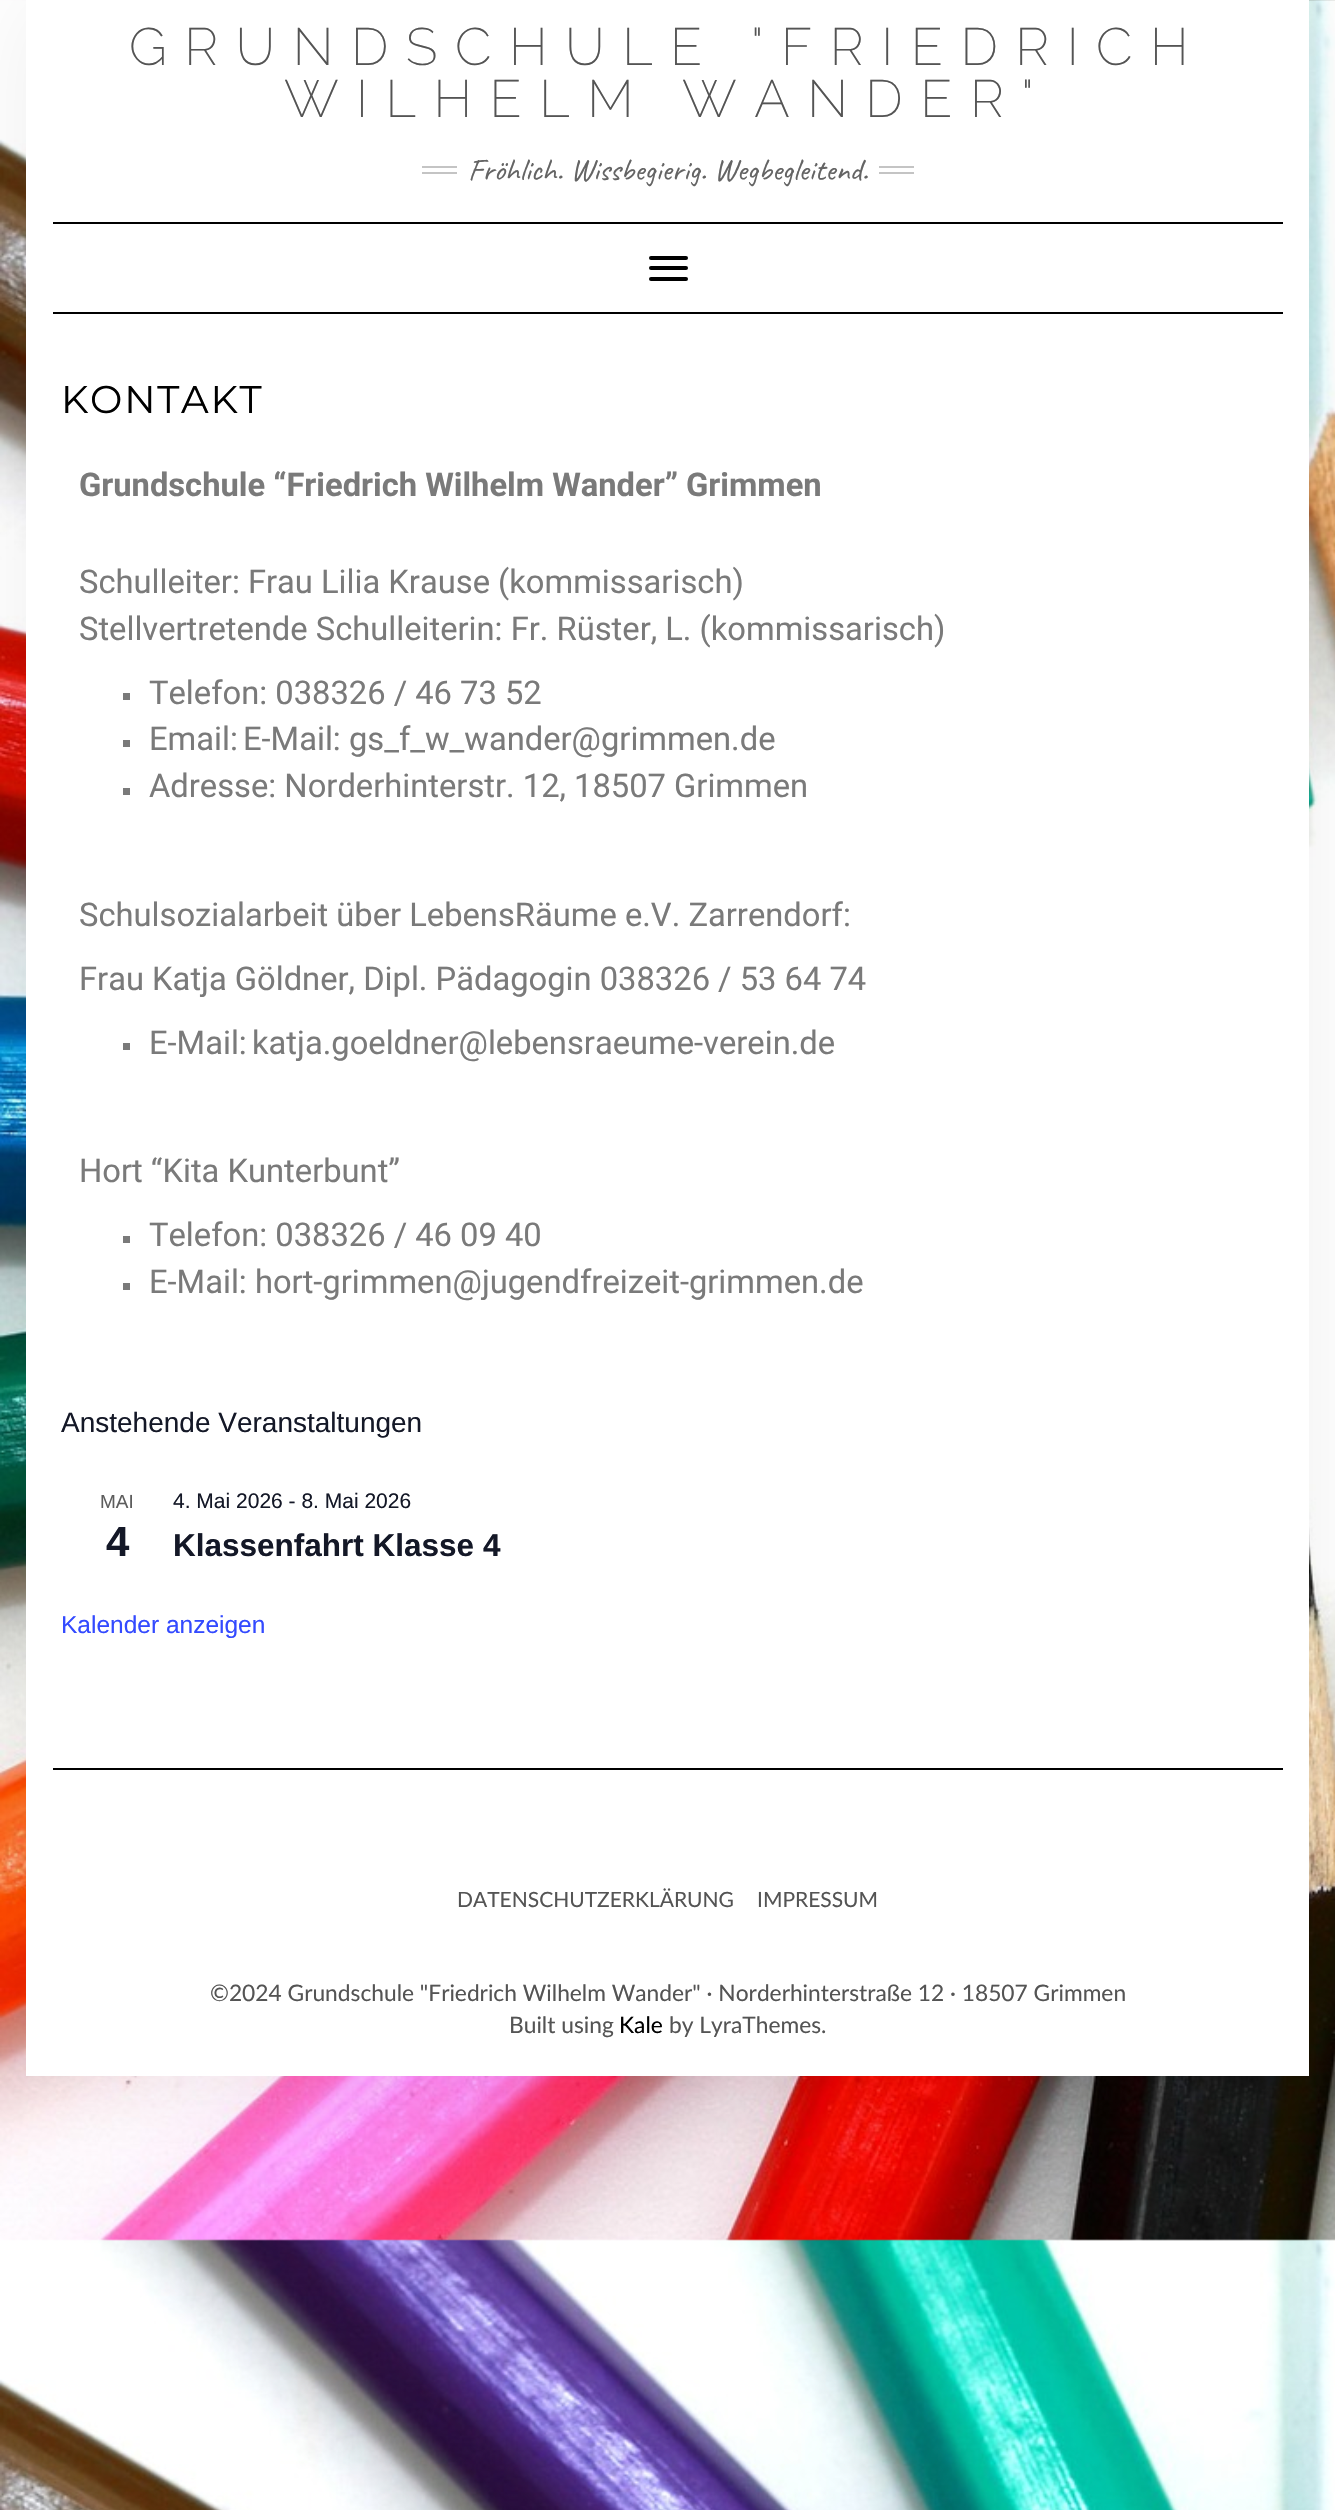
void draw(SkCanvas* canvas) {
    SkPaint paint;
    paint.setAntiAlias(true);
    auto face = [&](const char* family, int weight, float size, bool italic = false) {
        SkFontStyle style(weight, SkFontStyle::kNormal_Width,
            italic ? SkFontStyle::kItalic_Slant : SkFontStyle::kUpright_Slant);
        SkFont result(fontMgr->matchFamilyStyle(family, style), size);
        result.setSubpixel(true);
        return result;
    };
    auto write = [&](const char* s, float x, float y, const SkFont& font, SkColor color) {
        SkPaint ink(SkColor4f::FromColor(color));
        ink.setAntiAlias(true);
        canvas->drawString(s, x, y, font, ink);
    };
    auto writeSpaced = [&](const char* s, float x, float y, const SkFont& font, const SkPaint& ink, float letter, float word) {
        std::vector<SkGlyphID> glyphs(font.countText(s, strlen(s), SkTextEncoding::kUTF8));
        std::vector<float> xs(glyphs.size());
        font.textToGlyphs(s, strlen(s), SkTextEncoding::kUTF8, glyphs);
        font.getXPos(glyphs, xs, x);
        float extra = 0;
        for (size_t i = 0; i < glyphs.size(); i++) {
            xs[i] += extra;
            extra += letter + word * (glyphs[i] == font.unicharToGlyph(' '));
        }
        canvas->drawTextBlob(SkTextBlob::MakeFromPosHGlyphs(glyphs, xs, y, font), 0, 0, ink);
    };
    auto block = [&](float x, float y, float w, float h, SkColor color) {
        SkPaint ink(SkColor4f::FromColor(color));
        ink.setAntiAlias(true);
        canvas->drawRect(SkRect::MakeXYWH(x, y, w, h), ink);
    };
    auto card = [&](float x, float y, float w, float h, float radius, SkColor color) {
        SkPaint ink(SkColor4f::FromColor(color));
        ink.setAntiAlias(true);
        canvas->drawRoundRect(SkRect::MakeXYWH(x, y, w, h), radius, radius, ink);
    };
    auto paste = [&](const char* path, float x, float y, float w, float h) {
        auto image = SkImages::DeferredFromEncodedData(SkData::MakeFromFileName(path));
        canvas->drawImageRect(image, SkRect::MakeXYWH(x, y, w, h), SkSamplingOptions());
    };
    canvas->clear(SK_ColorWHITE);
    paste("pic1.png", 0, 0, 1335, 2510);
    paint.setColor(SkColorSetARGB(15, 0, 0, 0));
    paint.setMaskFilter(SkMaskFilter::MakeBlur(kNormal_SkBlurStyle, 44));
    canvas->drawRect(SkRect::MakeXYWH(26, 0, 1283, 2076), paint);
    paint.setMaskFilter(nullptr);
    block(26, 0, 1283, 2076, SK_ColorWHITE);
    auto kFont1 = face("Raleway", 200, 52.5f);
    paint.setColor(SkColorSetRGB(84, 84, 84));
    writeSpaced("GRUNDSCHULE \"FRIEDRICH", 129, 65, kFont1, paint, 17.5f, 0);
    writeSpaced("WILHELM WANDER\"", 284, 117, kFont1, paint, 17.5f, 0);
    block(422, 166, 35, 2, SkColorSetRGB(196, 196, 196));
    block(422, 172, 35, 2, SkColorSetRGB(196, 196, 196));
    auto kFont2 = face("Caveat", 400, 31.5f);
    write("Fröhlich. Wissbegierig. Wegbegleitend.", 468, 180, kFont2, SkColorSetRGB(100, 100, 100));
    block(879, 166, 35, 2, SkColorSetRGB(196, 196, 196));
    block(879, 172, 35, 2, SkColorSetRGB(196, 196, 196));
    block(53, 222, 1230, 2, SK_ColorBLACK);
    block(53, 312, 1230, 2, SK_ColorBLACK);
    card(649, 256, 39, 4, 2, SK_ColorBLACK);
    card(649, 266, 39, 4, 2, SK_ColorBLACK);
    card(649, 277, 39, 4, 2, SK_ColorBLACK);
    auto kFont3 = face("Montserrat", 400, 38.5f);
    paint.setColor(SK_ColorBLACK);
    writeSpaced("KONTAKT", 61, 413, kFont3, paint, 1.75f, 0);
    auto kFont4 = face("Roboto", 700, 32.7f);
    write("Grundschule “Friedrich Wilhelm Wander” Grimmen", 79, 496, kFont4, SkColorSetRGB(122, 122, 122));
    auto kFont5 = face("Roboto", 400, 32.7f);
    write("Schulleiter: Frau Lilia Krause (kommissarisch)", 79, 593, kFont5, SkColorSetRGB(122, 122, 122));
    write("Stellvertretende Schulleiterin: Fr. Rüster, L. (kommissarisch)", 79, 640, kFont5, SkColorSetRGB(122, 122, 122));
    block(123, 693, 7, 7, SkColorSetRGB(122, 122, 122));
    write("Telefon: 038326 / 46 73 52", 149, 704, kFont5, SkColorSetRGB(122, 122, 122));
    block(123, 740, 7, 7, SkColorSetRGB(122, 122, 122));
    write("Email:", 149, 750, kFont5, SkColorSetRGB(122, 122, 122));
    write("E-Mail: gs_f_w_wander@grimmen.de", 243, 750, kFont5, SkColorSetRGB(122, 122, 122));
    block(123, 788, 7, 7, SkColorSetRGB(122, 122, 122));
    write("Adresse: Norderhinterstr. 12, 18507 Grimmen", 149, 797, kFont5, SkColorSetRGB(122, 122, 122));
    write("Schulsozialarbeit über LebensRäume e.V. Zarrendorf:", 79, 926, kFont5, SkColorSetRGB(122, 122, 122));
    write("Frau Katja Göldner, Dipl. Pädagogin 038326 / 53 64 74", 79, 990, kFont5, SkColorSetRGB(122, 122, 122));
    block(123, 1043, 7, 7, SkColorSetRGB(122, 122, 122));
    write("E-Mail:", 149, 1054, kFont5, SkColorSetRGB(122, 122, 122));
    write("katja.goeldner@lebensraeume-verein.de", 252, 1054, kFont5, SkColorSetRGB(122, 122, 122));
    write("Hort “Kita Kunterbunt”", 79, 1182, kFont5, SkColorSetRGB(122, 122, 122));
    block(123, 1236, 7, 7, SkColorSetRGB(122, 122, 122));
    write("Telefon: 038326 / 46 09 40", 149, 1246, kFont5, SkColorSetRGB(122, 122, 122));
    block(123, 1283, 7, 7, SkColorSetRGB(122, 122, 122));
    write("E-Mail: hort-grimmen@jugendfreizeit-grimmen.de", 149, 1293, kFont5, SkColorSetRGB(122, 122, 122));
    auto kFont6 = face("Liberation Sans", 400, 28);
    write("Anstehende Veranstaltungen", 61, 1432, kFont6, SkColorSetRGB(20, 24, 39));
    auto kFont7 = face("Liberation Sans", 400, 19);
    write("MAI", 100, 1508, kFont7, SkColorSetRGB(93, 93, 93));
    auto kFont8 = face("Liberation Sans", 700, 42);
    write("4", 106, 1556, kFont8, SkColorSetRGB(20, 24, 39));
    auto kFont9 = face("Liberation Sans", 400, 21);
    write("4. Mai 2026 - 8. Mai 2026", 173, 1508, kFont9, SkColorSetRGB(20, 24, 39));
    auto kFont10 = face("Liberation Sans", 700, 31.5f);
    write("Klassenfahrt Klasse 4", 173, 1556, kFont10, SkColorSetRGB(20, 24, 39));
    auto kFont11 = face("Liberation Sans", 400, 24.5f);
    write("Kalender anzeigen", 61, 1633, kFont11, SkColorSetRGB(51, 74, 255));
    block(53, 1768, 1230, 2, SK_ColorBLACK);
    auto kFont12 = face("Lato", 400, 21);
    write("DATENSCHUTZERKLÄRUNG", 457, 1907, kFont12, SkColorSetRGB(84, 84, 84));
    write("IMPRESSUM", 757, 1907, kFont12, SkColorSetRGB(84, 84, 84));
    auto kFont13 = face("Lato", 400, 22.75f);
    write("©2024 Grundschule \"Friedrich Wilhelm Wander\" · Norderhinterstraße 12 · 18507 Grimmen", 210, 2001, kFont13, SkColorSetRGB(84, 84, 84));
    write("Built using", 509, 2033, kFont13, SkColorSetRGB(84, 84, 84));
    write("Kale", 619, 2033, kFont13, SK_ColorBLACK);
    write("by LyraThemes.", 669, 2033, kFont13, SkColorSetRGB(84, 84, 84));
}
